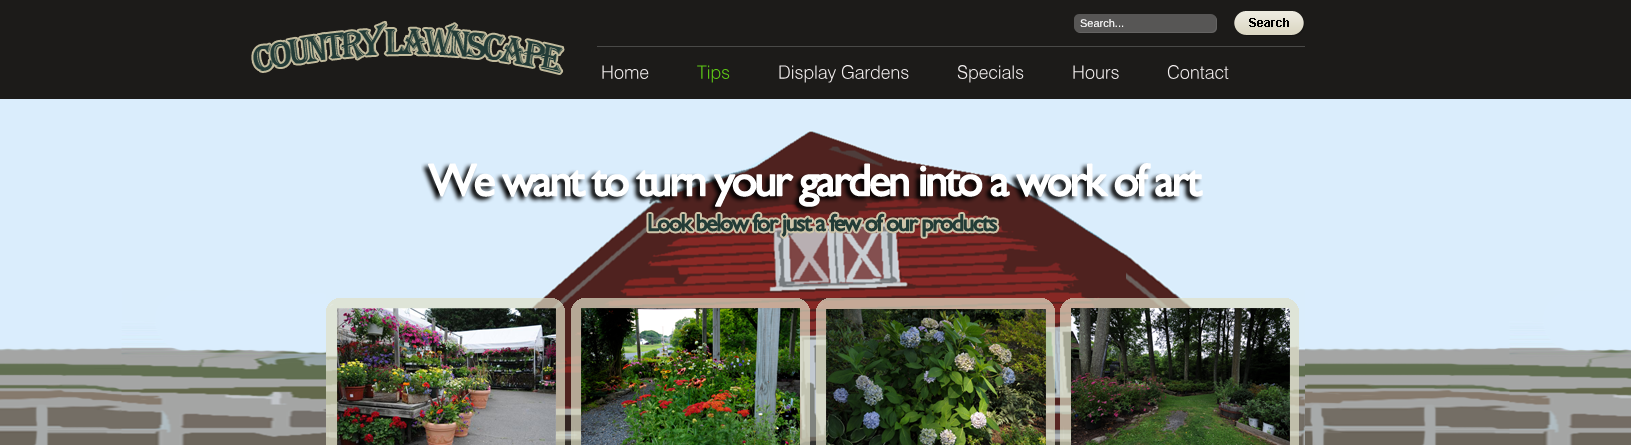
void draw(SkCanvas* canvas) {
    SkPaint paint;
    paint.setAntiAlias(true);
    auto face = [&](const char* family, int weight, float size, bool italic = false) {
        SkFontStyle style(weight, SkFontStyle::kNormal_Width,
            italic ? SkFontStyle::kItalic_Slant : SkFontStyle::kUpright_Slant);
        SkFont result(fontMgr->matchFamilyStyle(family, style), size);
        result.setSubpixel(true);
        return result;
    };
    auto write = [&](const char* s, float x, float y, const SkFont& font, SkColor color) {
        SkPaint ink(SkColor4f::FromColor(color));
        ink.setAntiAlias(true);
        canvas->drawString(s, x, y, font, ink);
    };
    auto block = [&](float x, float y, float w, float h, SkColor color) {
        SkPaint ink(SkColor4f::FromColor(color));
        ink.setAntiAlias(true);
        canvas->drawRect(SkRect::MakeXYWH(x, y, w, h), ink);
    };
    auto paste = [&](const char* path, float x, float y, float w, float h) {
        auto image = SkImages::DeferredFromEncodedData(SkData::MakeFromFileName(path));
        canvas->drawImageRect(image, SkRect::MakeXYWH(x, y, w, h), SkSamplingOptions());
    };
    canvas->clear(SK_ColorWHITE);
    block(0, 0, 1631, 99, SkColorSetRGB(28, 27, 25));
    paste("pic1.png", 251, 20, 314, 55);
    paste("pic2.png", 1074, 14, 143, 19);
    auto kFont1 = face("Liberation Sans", 400, 11);
    write("Search...", 1080, 27, kFont1, SK_ColorWHITE);
    paste("pic3.png", 1234, 11, 71, 25);
    block(597, 46, 708, 1, SkColorSetRGB(73, 73, 71));
    paste("pic4.png", 602, 65, 47, 14);
    paste("pic5.png", 697, 65, 33, 18);
    paste("pic6.png", 779, 65, 57, 18);
    paste("pic7.png", 841, 65, 68, 14);
    paste("pic8.png", 957, 65, 67, 18);
    paste("pic9.png", 1073, 65, 46, 14);
    paste("pic10.png", 1167, 65, 62, 14);
    paste("pic11.png", 0, 99, 1631, 346);
    paste("pic12.png", 326, 130, 979, 315);
    paste("pic13.png", 421, 162, 782, 77);
    paste("pic14.png", 326, 298, 239, 147);
    paste("pic15.png", 571, 298, 239, 147);
    paste("pic16.png", 816, 298, 239, 147);
    paste("pic17.png", 1060, 298, 239, 147);
}
